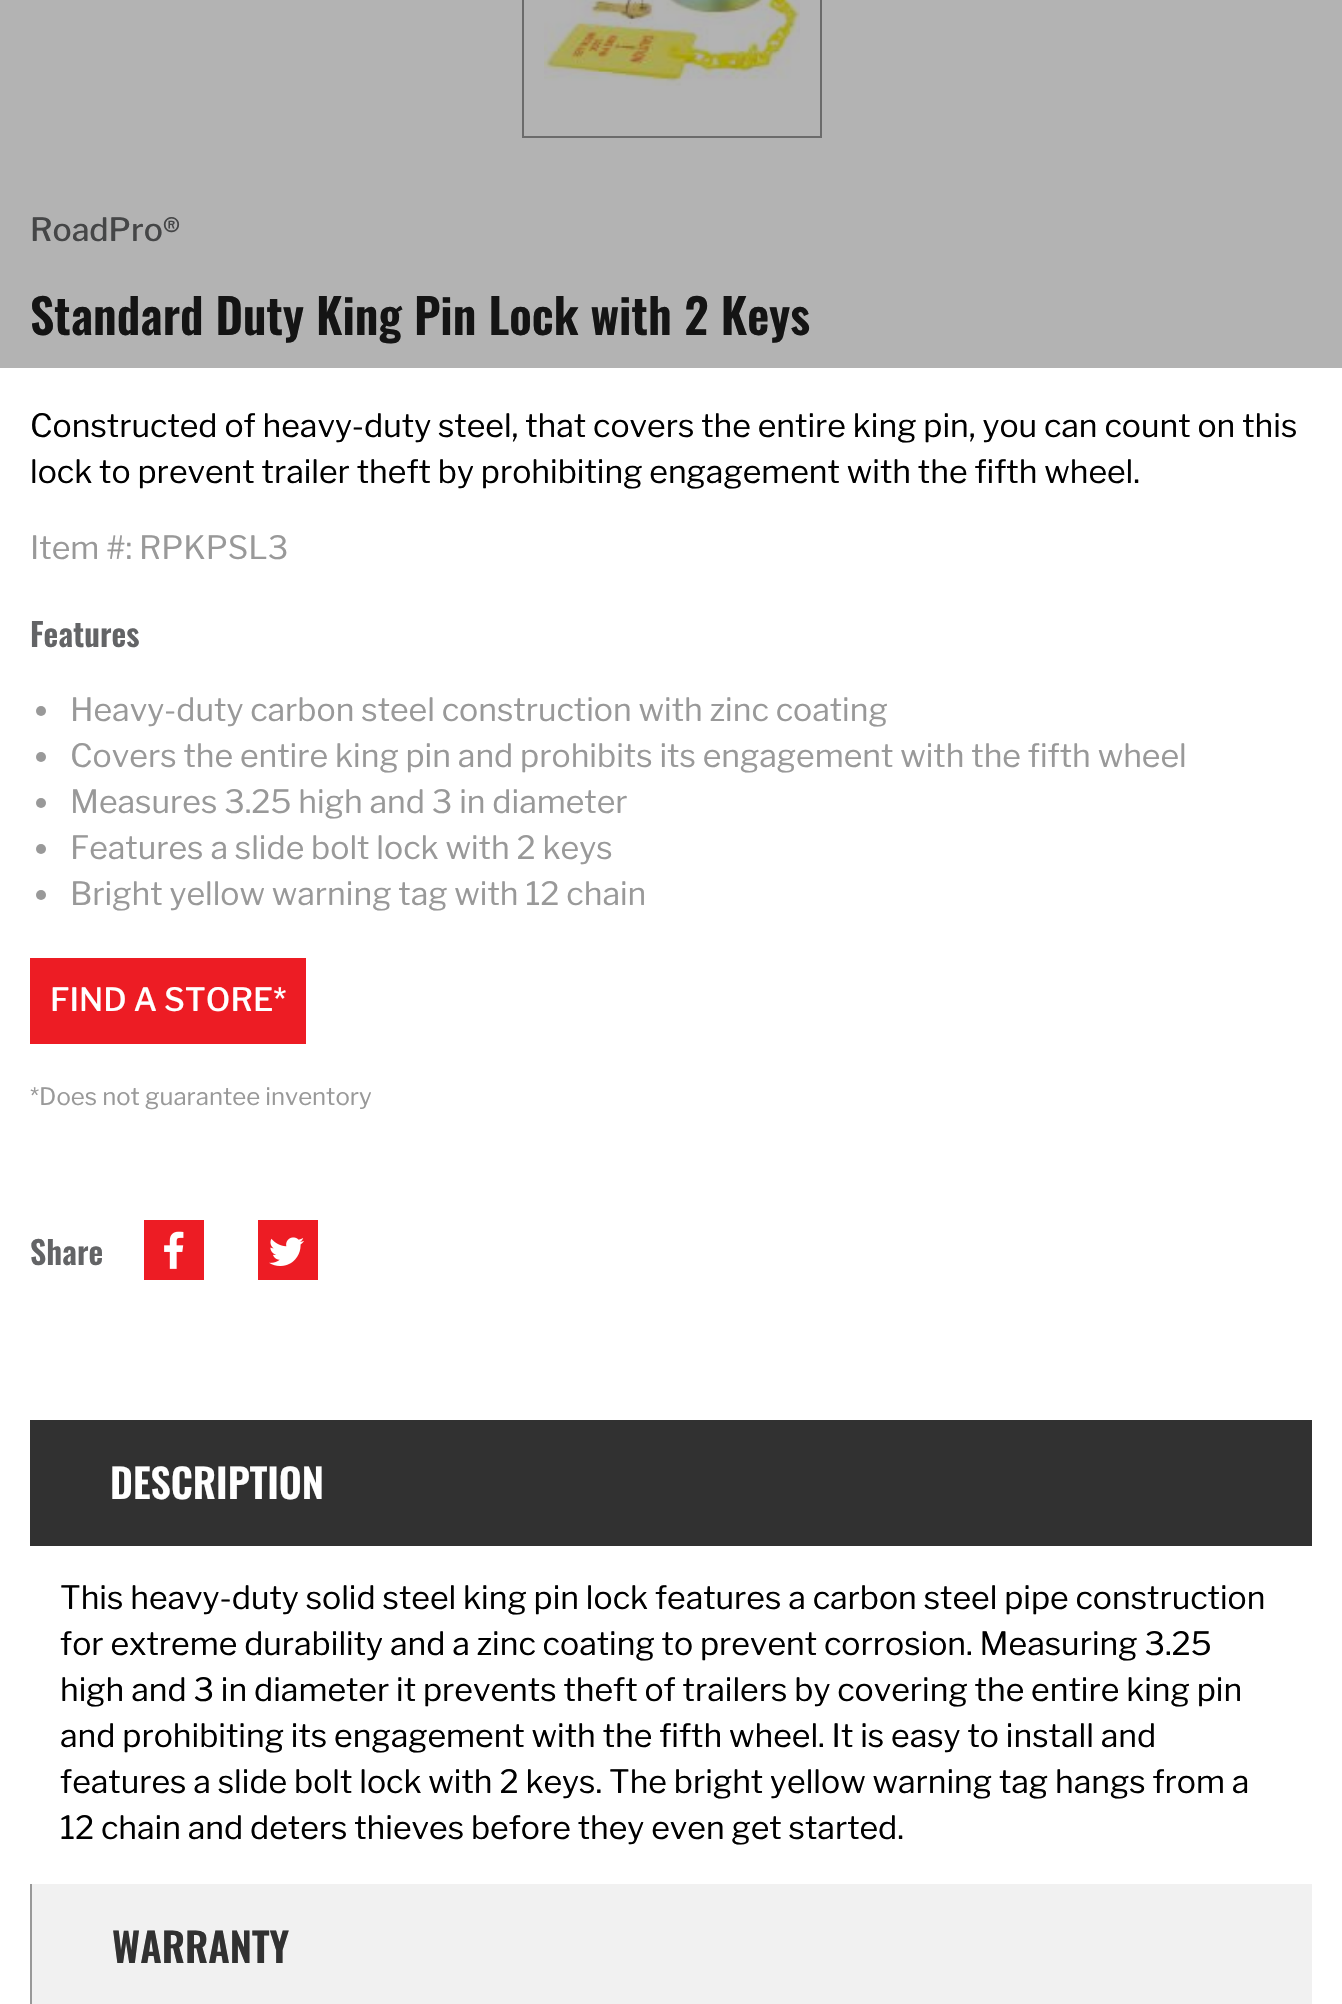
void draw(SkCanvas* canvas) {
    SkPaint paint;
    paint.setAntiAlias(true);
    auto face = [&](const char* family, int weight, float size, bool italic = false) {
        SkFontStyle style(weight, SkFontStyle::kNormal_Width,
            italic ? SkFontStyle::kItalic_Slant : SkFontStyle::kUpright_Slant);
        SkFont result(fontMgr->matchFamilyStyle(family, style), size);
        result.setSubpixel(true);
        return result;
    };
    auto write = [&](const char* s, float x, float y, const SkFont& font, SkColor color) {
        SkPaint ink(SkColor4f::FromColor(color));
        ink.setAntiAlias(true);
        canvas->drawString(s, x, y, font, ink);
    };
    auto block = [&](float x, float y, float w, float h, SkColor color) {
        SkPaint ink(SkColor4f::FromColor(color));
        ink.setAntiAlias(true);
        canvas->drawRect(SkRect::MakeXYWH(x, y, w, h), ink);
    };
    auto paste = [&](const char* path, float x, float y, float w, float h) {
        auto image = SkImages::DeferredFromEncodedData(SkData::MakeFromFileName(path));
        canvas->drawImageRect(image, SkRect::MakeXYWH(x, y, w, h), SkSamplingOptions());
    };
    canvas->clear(SK_ColorWHITE);
    block(0, 0, 1342, 368, SkColorSetRGB(179, 179, 179));
    paint.setStyle(SkPaint::kStroke_Style);
    paint.setStrokeWidth(2);
    paint.setColor(SkColorSetRGB(107, 107, 107));
    canvas->drawRect(SkRect::MakeXYWH(523, -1, 298, 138), paint);
    paste("pic1.png", 544, 0, 256, 86);
    auto kFont1 = face("Libre Franklin", 500, 32);
    write("RoadPro®", 30, 241, kFont1, SkColorSetRGB(69, 70, 71));
    auto kFont2 = face("Oswald", 600, 48);
    write("Standard Duty King Pin Lock with 2 Keys", 30, 335, kFont2, SkColorSetRGB(20, 20, 20));
    auto kFont3 = face("Libre Franklin", 400, 32);
    write("Constructed of heavy-duty steel, that covers the entire king pin, you can count on this", 30, 437, kFont3, SK_ColorBLACK);
    write("lock to prevent trailer theft by prohibiting engagement with the fifth wheel.", 30, 483, kFont3, SK_ColorBLACK);
    write("Item #: RPKPSL3", 30, 559, kFont3, SkColorSetRGB(153, 153, 153));
    auto kFont4 = face("Oswald", 600, 32);
    write("Features", 30, 647, kFont4, SkColorSetRGB(99, 100, 102));
    paint.setStyle(SkPaint::kFill_Style);
    paint.setColor(SkColorSetRGB(153, 153, 153));
    canvas->drawCircle(41, 711, 5, paint);
    write("Heavy-duty carbon steel construction with zinc coating", 70, 721, kFont3, SkColorSetRGB(153, 153, 153));
    canvas->drawCircle(41, 757, 5, paint);
    write("Covers the entire king pin and prohibits its engagement with the fifth wheel", 70, 767, kFont3, SkColorSetRGB(153, 153, 153));
    canvas->drawCircle(41, 803, 5, paint);
    write("Measures 3.25 high and 3 in diameter", 70, 813, kFont3, SkColorSetRGB(153, 153, 153));
    canvas->drawCircle(41, 849, 5, paint);
    write("Features a slide bolt lock with 2 keys", 70, 859, kFont3, SkColorSetRGB(153, 153, 153));
    canvas->drawCircle(41, 895, 5, paint);
    write("Bright yellow warning tag with 12 chain", 70, 905, kFont3, SkColorSetRGB(153, 153, 153));
    block(30, 958, 276, 86, SkColorSetRGB(237, 28, 36));
    write("FIND A STORE*", 50, 1011, kFont1, SK_ColorWHITE);
    auto kFont5 = face("Libre Franklin", 400, 24);
    write("*Does not guarantee inventory", 30, 1105, kFont5, SkColorSetRGB(153, 153, 153));
    write("Share", 30, 1265, kFont4, SkColorSetRGB(99, 100, 102));
    block(144, 1220, 60, 60, SkColorSetRGB(237, 28, 36));
    paste("pic2.png", 164, 1231, 20, 38);
    block(258, 1220, 60, 60, SkColorSetRGB(237, 28, 36));
    paste("pic3.png", 269, 1237, 35, 29);
    block(30, 1420, 1282, 126, SkColorSetRGB(49, 49, 49));
    auto kFont6 = face("Oswald", 600, 40);
    write("DESCRIPTION", 110, 1499, kFont6, SK_ColorWHITE);
    write("This heavy-duty solid steel king pin lock features a carbon steel pipe construction", 60, 1609, kFont3, SK_ColorBLACK);
    write("for extreme durability and a zinc coating to prevent corrosion. Measuring 3.25", 60, 1655, kFont3, SK_ColorBLACK);
    write("high and 3 in diameter it prevents theft of trailers by covering the entire king pin", 60, 1701, kFont3, SK_ColorBLACK);
    write("and prohibiting its engagement with the fifth wheel. It is easy to install and", 60, 1747, kFont3, SK_ColorBLACK);
    write("features a slide bolt lock with 2 keys. The bright yellow warning tag hangs from a", 60, 1793, kFont3, SK_ColorBLACK);
    write("12 chain and deters thieves before they even get started.", 60, 1839, kFont3, SK_ColorBLACK);
    block(30, 1884, 2, 120, SkColorSetRGB(153, 153, 153));
    block(32, 1884, 1280, 120, SkColorSetRGB(241, 241, 241));
    write("WARRANTY", 112, 1963, kFont6, SkColorSetRGB(49, 49, 49));
}
